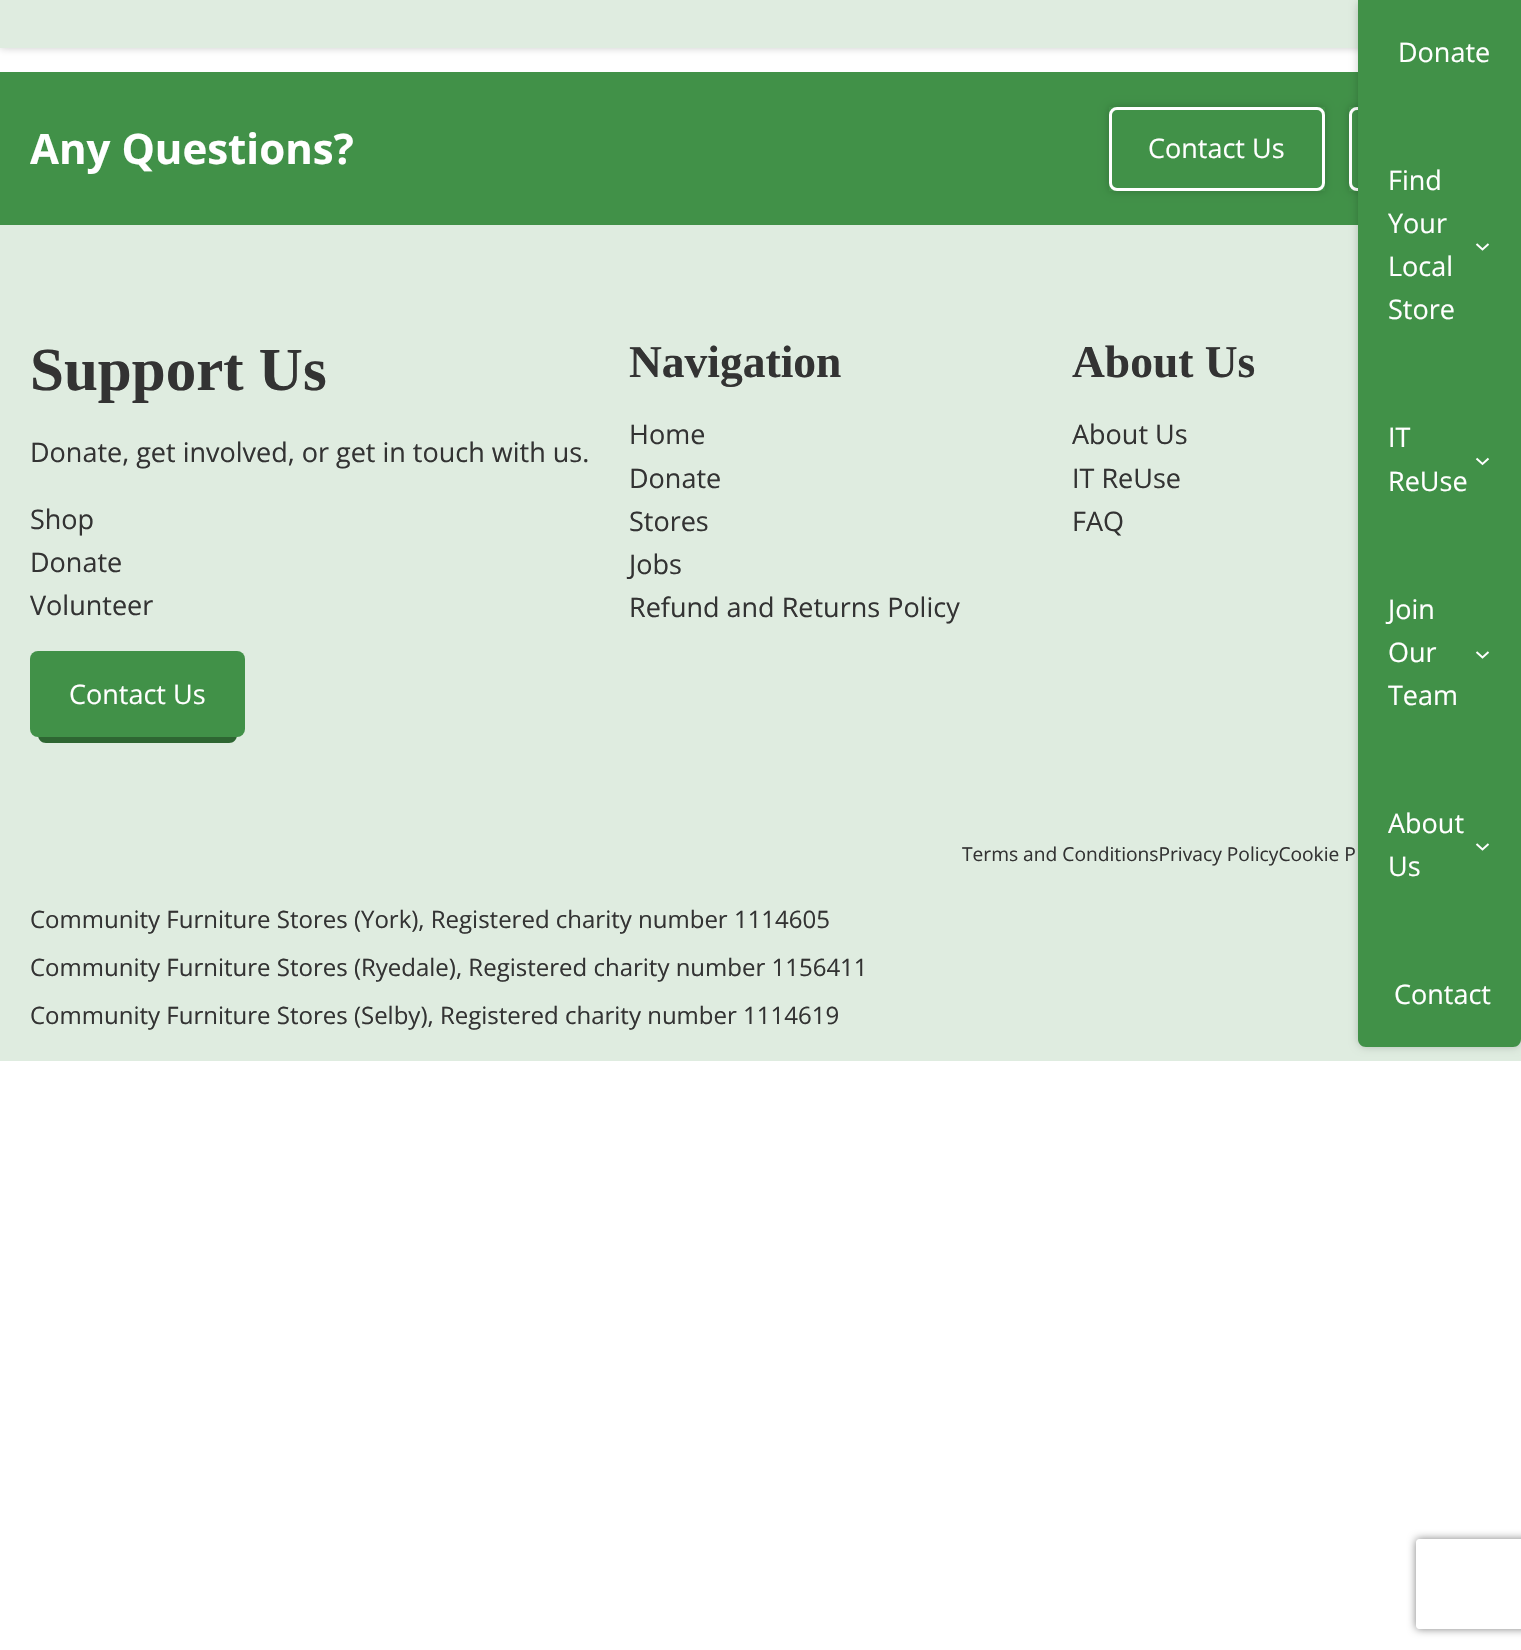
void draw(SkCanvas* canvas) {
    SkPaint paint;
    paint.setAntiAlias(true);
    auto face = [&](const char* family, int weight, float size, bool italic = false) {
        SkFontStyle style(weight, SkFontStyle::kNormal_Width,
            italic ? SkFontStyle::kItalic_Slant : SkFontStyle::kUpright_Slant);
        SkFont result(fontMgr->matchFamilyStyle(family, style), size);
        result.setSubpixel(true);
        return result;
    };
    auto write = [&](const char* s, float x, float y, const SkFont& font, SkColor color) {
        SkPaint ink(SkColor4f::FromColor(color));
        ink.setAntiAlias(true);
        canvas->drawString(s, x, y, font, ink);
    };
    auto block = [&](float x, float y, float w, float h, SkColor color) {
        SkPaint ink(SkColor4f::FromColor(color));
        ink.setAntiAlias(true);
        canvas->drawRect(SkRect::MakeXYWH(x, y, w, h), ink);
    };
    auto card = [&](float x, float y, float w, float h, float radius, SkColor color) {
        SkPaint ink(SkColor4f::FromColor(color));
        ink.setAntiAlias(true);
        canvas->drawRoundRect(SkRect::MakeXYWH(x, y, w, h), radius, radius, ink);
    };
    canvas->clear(SK_ColorWHITE);
    block(0, 72, 1358, 153, SkColorSetRGB(65, 145, 72));
    auto kFont1 = face("Open Sans", 700, 42);
    write("Any Questions?", 30, 164, kFont1, SK_ColorWHITE);
    canvas->save();
    canvas->clipPath(SkPathBuilder(SkPathFillType::kEvenOdd).moveTo(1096, 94).lineTo(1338, 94).lineTo(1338, 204).lineTo(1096, 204).close().moveTo(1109, 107).lineTo(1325, 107).lineTo(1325, 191).lineTo(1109, 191).close().detach(), true);
    paint.setColor(SkColorSetARGB(51, 0, 0, 0));
    paint.setMaskFilter(SkMaskFilter::MakeBlur(kNormal_SkBlurStyle, 4));
    canvas->drawRect(SkRect::MakeXYWH(1109, 107, 216, 84), paint);
    paint.setMaskFilter(nullptr);
    canvas->restore();
    paint.setStyle(SkPaint::kStroke_Style);
    paint.setStrokeWidth(3);
    paint.setColor(SK_ColorWHITE);
    canvas->drawRoundRect(SkRect::MakeXYWH(1110.5f, 108.5f, 213, 81), 6.5f, 6.5f, paint);
    auto kFont2 = face("Open Sans", 400, 27);
    write("Contact Us", 1148, 158, kFont2, SK_ColorWHITE);
    canvas->save();
    canvas->clipPath(SkPathBuilder(SkPathFillType::kEvenOdd).moveTo(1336, 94).lineTo(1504, 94).lineTo(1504, 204).lineTo(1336, 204).close().moveTo(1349, 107).lineTo(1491, 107).lineTo(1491, 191).lineTo(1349, 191).close().detach(), true);
    paint.setStyle(SkPaint::kFill_Style);
    paint.setColor(SkColorSetARGB(51, 0, 0, 0));
    paint.setMaskFilter(SkMaskFilter::MakeBlur(kNormal_SkBlurStyle, 4));
    canvas->drawRect(SkRect::MakeXYWH(1349, 107, 142, 84), paint);
    paint.setMaskFilter(nullptr);
    canvas->restore();
    paint.setStyle(SkPaint::kStroke_Style);
    paint.setColor(SK_ColorWHITE);
    canvas->drawRoundRect(SkRect::MakeXYWH(1350.5f, 108.5f, 139, 81), 6.5f, 6.5f, paint);
    block(0, 225, 1521, 836, SkColorSetRGB(223, 236, 224));
    auto kFont3 = face("Liberation Serif", 700, 61);
    write("Support Us", 30, 390, kFont3, SkColorSetRGB(51, 51, 51));
    write("Donate, get involved, or get in touch with us.", 30, 462, kFont2, SkColorSetRGB(51, 51, 51));
    write("Shop", 30, 529, kFont2, SkColorSetRGB(51, 51, 51));
    write("Donate", 30, 572, kFont2, SkColorSetRGB(51, 51, 51));
    write("Volunteer", 30, 615, kFont2, SkColorSetRGB(51, 51, 51));
    paint.setStyle(SkPaint::kFill_Style);
    paint.setColor(SkColorSetRGB(46, 102, 50));
    canvas->drawPath(SkPathBuilder().moveTo(38, 695).lineTo(237, 695).lineTo(237, 735).cubicTo(237, 739.5f, 233.5f, 743, 229, 743).lineTo(46, 743).cubicTo(41.5f, 743, 38, 739.5f, 38, 735).close().detach(), paint);
    card(30, 651, 215, 86, 8, SkColorSetRGB(65, 145, 72));
    write("Contact Us", 69, 704, kFont2, SK_ColorWHITE);
    auto kFont4 = face("Liberation Serif", 700, 45.5f);
    write("Navigation", 629, 377, kFont4, SkColorSetRGB(51, 51, 51));
    write("Home", 629, 444, kFont2, SkColorSetRGB(51, 51, 51));
    write("Donate", 629, 488, kFont2, SkColorSetRGB(51, 51, 51));
    write("Stores", 629, 531, kFont2, SkColorSetRGB(51, 51, 51));
    write("Jobs", 629, 574, kFont2, SkColorSetRGB(51, 51, 51));
    write("Refund and Returns Policy", 629, 617, kFont2, SkColorSetRGB(51, 51, 51));
    write("About Us", 1072, 377, kFont4, SkColorSetRGB(51, 51, 51));
    write("About Us", 1072, 444, kFont2, SkColorSetRGB(51, 51, 51));
    write("IT ReUse", 1072, 488, kFont2, SkColorSetRGB(51, 51, 51));
    write("FAQ", 1072, 531, kFont2, SkColorSetRGB(51, 51, 51));
    auto kFont5 = face("Open Sans", 400, 19.2f);
    write("Terms and ConditionsPrivacy PolicyCookie P", 962, 861, kFont5, SkColorSetRGB(51, 51, 51));
    auto kFont6 = face("Open Sans", 400, 24);
    write("Community Furniture Stores (York), Registered charity number 1114605", 30, 928, kFont6, SkColorSetRGB(51, 51, 51));
    write("Community Furniture Stores (Ryedale), Registered charity number 1156411", 30, 976, kFont6, SkColorSetRGB(51, 51, 51));
    write("Community Furniture Stores (Selby), Registered charity number 1114619", 30, 1024, kFont6, SkColorSetRGB(51, 51, 51));
    paint.setColor(SkColorSetARGB(51, 0, 0, 0));
    paint.setMaskFilter(SkMaskFilter::MakeBlur(kNormal_SkBlurStyle, 4));
    canvas->drawRect(SkRect::MakeXYWH(0, 0, 1521, 48), paint);
    paint.setMaskFilter(nullptr);
    block(0, 0, 1358, 48, SkColorSetRGB(223, 236, 224));
    paint.setMaskFilter(SkMaskFilter::MakeBlur(kNormal_SkBlurStyle, 4));
    canvas->drawRoundRect(SkRect::MakeXYWH(1358, 0, 163, 1047), 8, 8, paint);
    paint.setMaskFilter(nullptr);
    paint.setColor(SkColorSetRGB(65, 145, 72));
    canvas->drawPath(SkPathBuilder().moveTo(1358, 0).lineTo(1521, 0).lineTo(1521, 1039).cubicTo(1521, 1043.5f, 1517.5f, 1047, 1513, 1047).lineTo(1366, 1047).cubicTo(1361.5f, 1047, 1358, 1043.5f, 1358, 1039).close().detach(), paint);
    write("Donate", 1398, 62, kFont2, SK_ColorWHITE);
    write("Find", 1388, 190, kFont2, SK_ColorWHITE);
    write("Your", 1388, 233, kFont2, SK_ColorWHITE);
    write("Local", 1388, 276, kFont2, SK_ColorWHITE);
    write("Store", 1388, 319, kFont2, SK_ColorWHITE);
    paint.setStyle(SkPaint::kStroke_Style);
    paint.setStrokeWidth(2);
    paint.setColor(SK_ColorWHITE);
    canvas->drawPath(SkPathBuilder().moveTo(1476.5f, 244).lineTo(1482.5f, 249.5f).lineTo(1488.5f, 244).detach(), paint);
    write("IT", 1388, 447, kFont2, SK_ColorWHITE);
    write("ReUse", 1388, 491, kFont2, SK_ColorWHITE);
    canvas->drawPath(SkPathBuilder().moveTo(1476.5f, 458.5f).lineTo(1482.5f, 464).lineTo(1488.5f, 458.5f).detach(), paint);
    write("Join", 1388, 619, kFont2, SK_ColorWHITE);
    write("Our", 1388, 662, kFont2, SK_ColorWHITE);
    write("Team", 1388, 705, kFont2, SK_ColorWHITE);
    canvas->drawPath(SkPathBuilder().moveTo(1476.5f, 652).lineTo(1482.5f, 657.5f).lineTo(1488.5f, 652).detach(), paint);
    write("About", 1388, 833, kFont2, SK_ColorWHITE);
    write("Us", 1388, 876, kFont2, SK_ColorWHITE);
    canvas->drawPath(SkPathBuilder().moveTo(1476.5f, 844).lineTo(1482.5f, 849.5f).lineTo(1488.5f, 844).detach(), paint);
    write("Contact", 1394, 1004, kFont2, SK_ColorWHITE);
    canvas->save();
    canvas->clipPath(SkPathBuilder(SkPathFillType::kEvenOdd).moveTo(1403, 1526).lineTo(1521, 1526).lineTo(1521, 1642).lineTo(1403, 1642).close().moveTo(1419, 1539).lineTo(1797, 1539).cubicTo(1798.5f, 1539, 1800, 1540.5f, 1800, 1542).lineTo(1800, 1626).cubicTo(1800, 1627.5f, 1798.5f, 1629, 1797, 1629).lineTo(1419, 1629).cubicTo(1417.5f, 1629, 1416, 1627.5f, 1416, 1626).lineTo(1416, 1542).cubicTo(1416, 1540.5f, 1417.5f, 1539, 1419, 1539).close().detach(), true);
    paint.setStyle(SkPaint::kFill_Style);
    paint.setColor(SkColorSetRGB(128, 128, 128));
    paint.setMaskFilter(SkMaskFilter::MakeBlur(kNormal_SkBlurStyle, 4));
    canvas->drawRoundRect(SkRect::MakeXYWH(1416, 1539, 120, 90), 3, 3, paint);
    paint.setMaskFilter(nullptr);
    canvas->restore();
}
